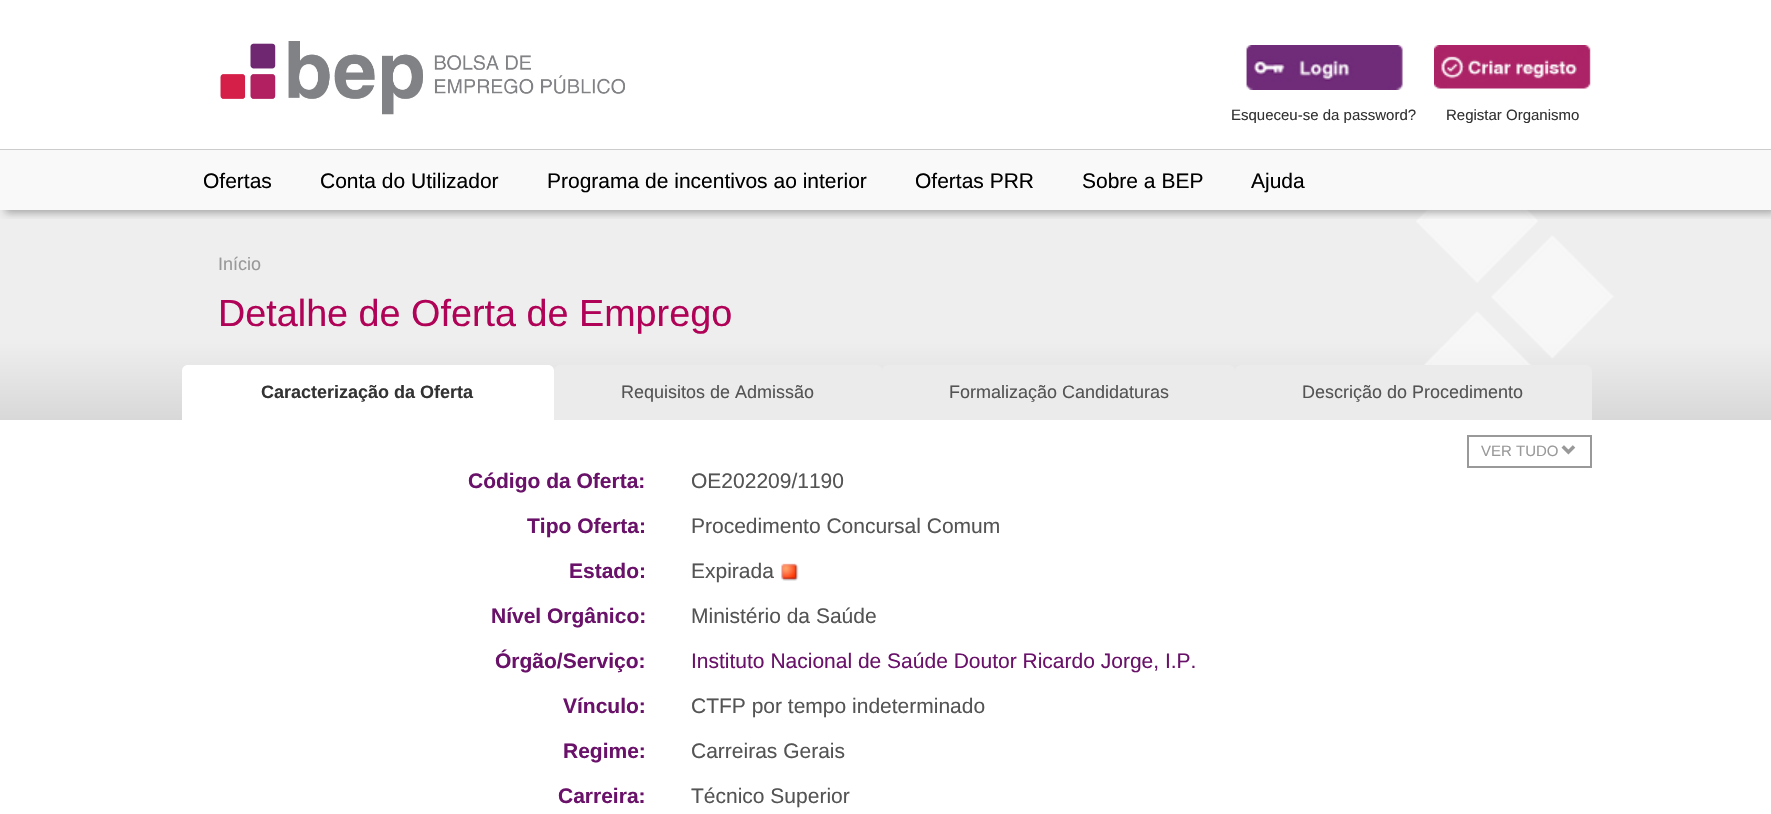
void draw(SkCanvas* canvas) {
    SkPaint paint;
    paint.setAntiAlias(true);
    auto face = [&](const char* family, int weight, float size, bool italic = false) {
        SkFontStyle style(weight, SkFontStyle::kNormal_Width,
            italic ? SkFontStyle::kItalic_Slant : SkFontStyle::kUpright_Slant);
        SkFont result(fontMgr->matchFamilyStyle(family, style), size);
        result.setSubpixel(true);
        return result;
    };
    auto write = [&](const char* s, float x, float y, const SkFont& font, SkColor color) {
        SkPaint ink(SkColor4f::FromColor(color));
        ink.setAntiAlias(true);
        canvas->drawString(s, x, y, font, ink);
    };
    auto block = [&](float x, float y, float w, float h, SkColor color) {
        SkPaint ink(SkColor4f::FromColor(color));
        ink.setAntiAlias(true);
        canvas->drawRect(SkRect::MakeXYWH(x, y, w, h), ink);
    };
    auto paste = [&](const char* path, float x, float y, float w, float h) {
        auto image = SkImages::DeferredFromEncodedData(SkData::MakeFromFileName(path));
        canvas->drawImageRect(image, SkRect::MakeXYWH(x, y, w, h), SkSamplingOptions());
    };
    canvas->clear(SK_ColorWHITE);
    {
        const SkColor colors[] = {SkColorSetRGB(238, 238, 238), SkColorSetRGB(216, 216, 216)};
        const float stops[] = {0.63f, 1};
        const SkPoint ends[] = {{886, 210}, {886, 420}};
        paint.setShader(SkGradientShader::MakeLinear(ends, colors, stops, 2, SkTileMode::kClamp));
        paint.setAlpha(255);
    }
    canvas->drawRect(SkRect::MakeXYWH(0, 210, 1771, 210), paint);
    paste("pic4.png", 1416, 210, 198, 155);
    canvas->save();
    canvas->clipRect(SkRect::MakeXYWH(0, 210, 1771, 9));
    paint.setShader(nullptr);
    paint.setColor(SkColorSetARGB(77, 0, 0, 0));
    paint.setMaskFilter(SkMaskFilter::MakeBlur(kNormal_SkBlurStyle, 4));
    canvas->drawRect(SkRect::MakeXYWH(5, 3, 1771, 210), paint);
    paint.setMaskFilter(nullptr);
    canvas->restore();
    block(0, 149, 1771, 1, SkColorSetRGB(204, 204, 204));
    paste("pic1.png", 220, 41, 405, 74);
    paste("pic2.png", 1434, 45, 157, 44);
    paste("pic3.png", 1246, 45, 157, 45);
    auto kFont1 = face("Liberation Sans", 400, 15);
    write("Esqueceu-se da password?", 1231, 120, kFont1, SkColorSetRGB(51, 51, 51));
    write("Registar Organismo", 1446, 120, kFont1, SkColorSetRGB(51, 51, 51));
    block(0, 150, 1771, 60, SkColorSetRGB(249, 249, 249));
    auto kFont2 = face("Liberation Sans", 400, 21);
    write("Ofertas", 203, 188, kFont2, SK_ColorBLACK);
    write("Conta do Utilizador", 320, 188, kFont2, SK_ColorBLACK);
    write("Programa de incentivos ao interior", 547, 188, kFont2, SK_ColorBLACK);
    write("Ofertas PRR", 915, 188, kFont2, SK_ColorBLACK);
    write("Sobre a BEP", 1082, 188, kFont2, SK_ColorBLACK);
    write("Ajuda", 1251, 188, kFont2, SK_ColorBLACK);
    auto kFont3 = face("Liberation Sans", 400, 18);
    write("Início", 218, 270, kFont3, SkColorSetRGB(153, 153, 153));
    auto kFont4 = face("Liberation Sans", 400, 37.75f);
    write("Detalhe de Oferta de Emprego", 218, 326, kFont4, SkColorSetRGB(176, 2, 87));
    paint.setColor(SK_ColorWHITE);
    canvas->drawPath(SkPathBuilder().moveTo(188, 365).lineTo(548, 365).cubicTo(551.5f, 365, 554, 367.5f, 554, 371).lineTo(554, 420).lineTo(182, 420).lineTo(182, 371).cubicTo(182, 367.5f, 184.5f, 365, 188, 365).close().detach(), paint);
    auto kFont5 = face("Liberation Sans", 700, 18);
    write("Caracterização da Oferta", 261, 398, kFont5, SkColorSetRGB(51, 51, 51));
    paint.setColor(SkColorSetRGB(235, 235, 235));
    canvas->drawPath(SkPathBuilder().moveTo(560, 365).lineTo(876, 365).cubicTo(879.5f, 365, 882, 367.5f, 882, 371).lineTo(882, 420).lineTo(554, 420).lineTo(554, 371).cubicTo(554, 367.5f, 556.5f, 365, 560, 365).close().detach(), paint);
    write("Requisitos de Admissão", 621, 398, kFont3, SkColorSetRGB(84, 84, 84));
    canvas->drawPath(SkPathBuilder().moveTo(888, 365).lineTo(1229, 365).cubicTo(1232.5f, 365, 1235, 367.5f, 1235, 371).lineTo(1235, 420).lineTo(882, 420).lineTo(882, 371).cubicTo(882, 367.5f, 884.5f, 365, 888, 365).close().detach(), paint);
    write("Formalização Candidaturas", 949, 398, kFont3, SkColorSetRGB(84, 84, 84));
    canvas->drawPath(SkPathBuilder().moveTo(1241, 365).lineTo(1586, 365).cubicTo(1589.5f, 365, 1592, 367.5f, 1592, 371).lineTo(1592, 420).lineTo(1235, 420).lineTo(1235, 371).cubicTo(1235, 367.5f, 1237.5f, 365, 1241, 365).close().detach(), paint);
    write("Descrição do Procedimento", 1302, 398, kFont3, SkColorSetRGB(84, 84, 84));
    paint.setStyle(SkPaint::kStroke_Style);
    paint.setStrokeWidth(2);
    paint.setColor(SkColorSetRGB(153, 153, 153));
    canvas->drawRect(SkRect::MakeXYWH(1468, 436, 123, 31), paint);
    write("VER TUDO", 1481, 456, kFont1, SkColorSetRGB(153, 153, 153));
    paste("pic5.png", 1561, 445, 15, 10);
    auto kFont6 = face("Liberation Sans", 700, 21);
    write("Código da Oferta:", 468, 488, kFont6, SkColorSetRGB(106, 18, 106));
    write("OE202209/1190", 691, 488, kFont2, SkColorSetRGB(84, 84, 84));
    write("Tipo Oferta:", 527, 533, kFont6, SkColorSetRGB(106, 18, 106));
    write("Procedimento Concursal Comum", 691, 533, kFont2, SkColorSetRGB(84, 84, 84));
    write("Estado:", 569, 578, kFont6, SkColorSetRGB(106, 18, 106));
    write("Expirada", 691, 578, kFont2, SkColorSetRGB(84, 84, 84));
    paste("pic6.png", 781, 563, 18, 18);
    write("Nível Orgânico:", 491, 623, kFont6, SkColorSetRGB(106, 18, 106));
    write("Ministério da Saúde", 691, 623, kFont2, SkColorSetRGB(84, 84, 84));
    write("Órgão/Serviço:", 495, 668, kFont6, SkColorSetRGB(106, 18, 106));
    write("Instituto Nacional de Saúde Doutor Ricardo Jorge, I.P.", 691, 668, kFont2, SkColorSetRGB(106, 18, 106));
    write("Vínculo:", 563, 713, kFont6, SkColorSetRGB(106, 18, 106));
    write("CTFP por tempo indeterminado", 691, 713, kFont2, SkColorSetRGB(84, 84, 84));
    write("Regime:", 563, 758, kFont6, SkColorSetRGB(106, 18, 106));
    write("Carreiras Gerais", 691, 758, kFont2, SkColorSetRGB(84, 84, 84));
    write("Carreira:", 558, 803, kFont6, SkColorSetRGB(106, 18, 106));
    write("Técnico Superior", 691, 803, kFont2, SkColorSetRGB(84, 84, 84));
}
